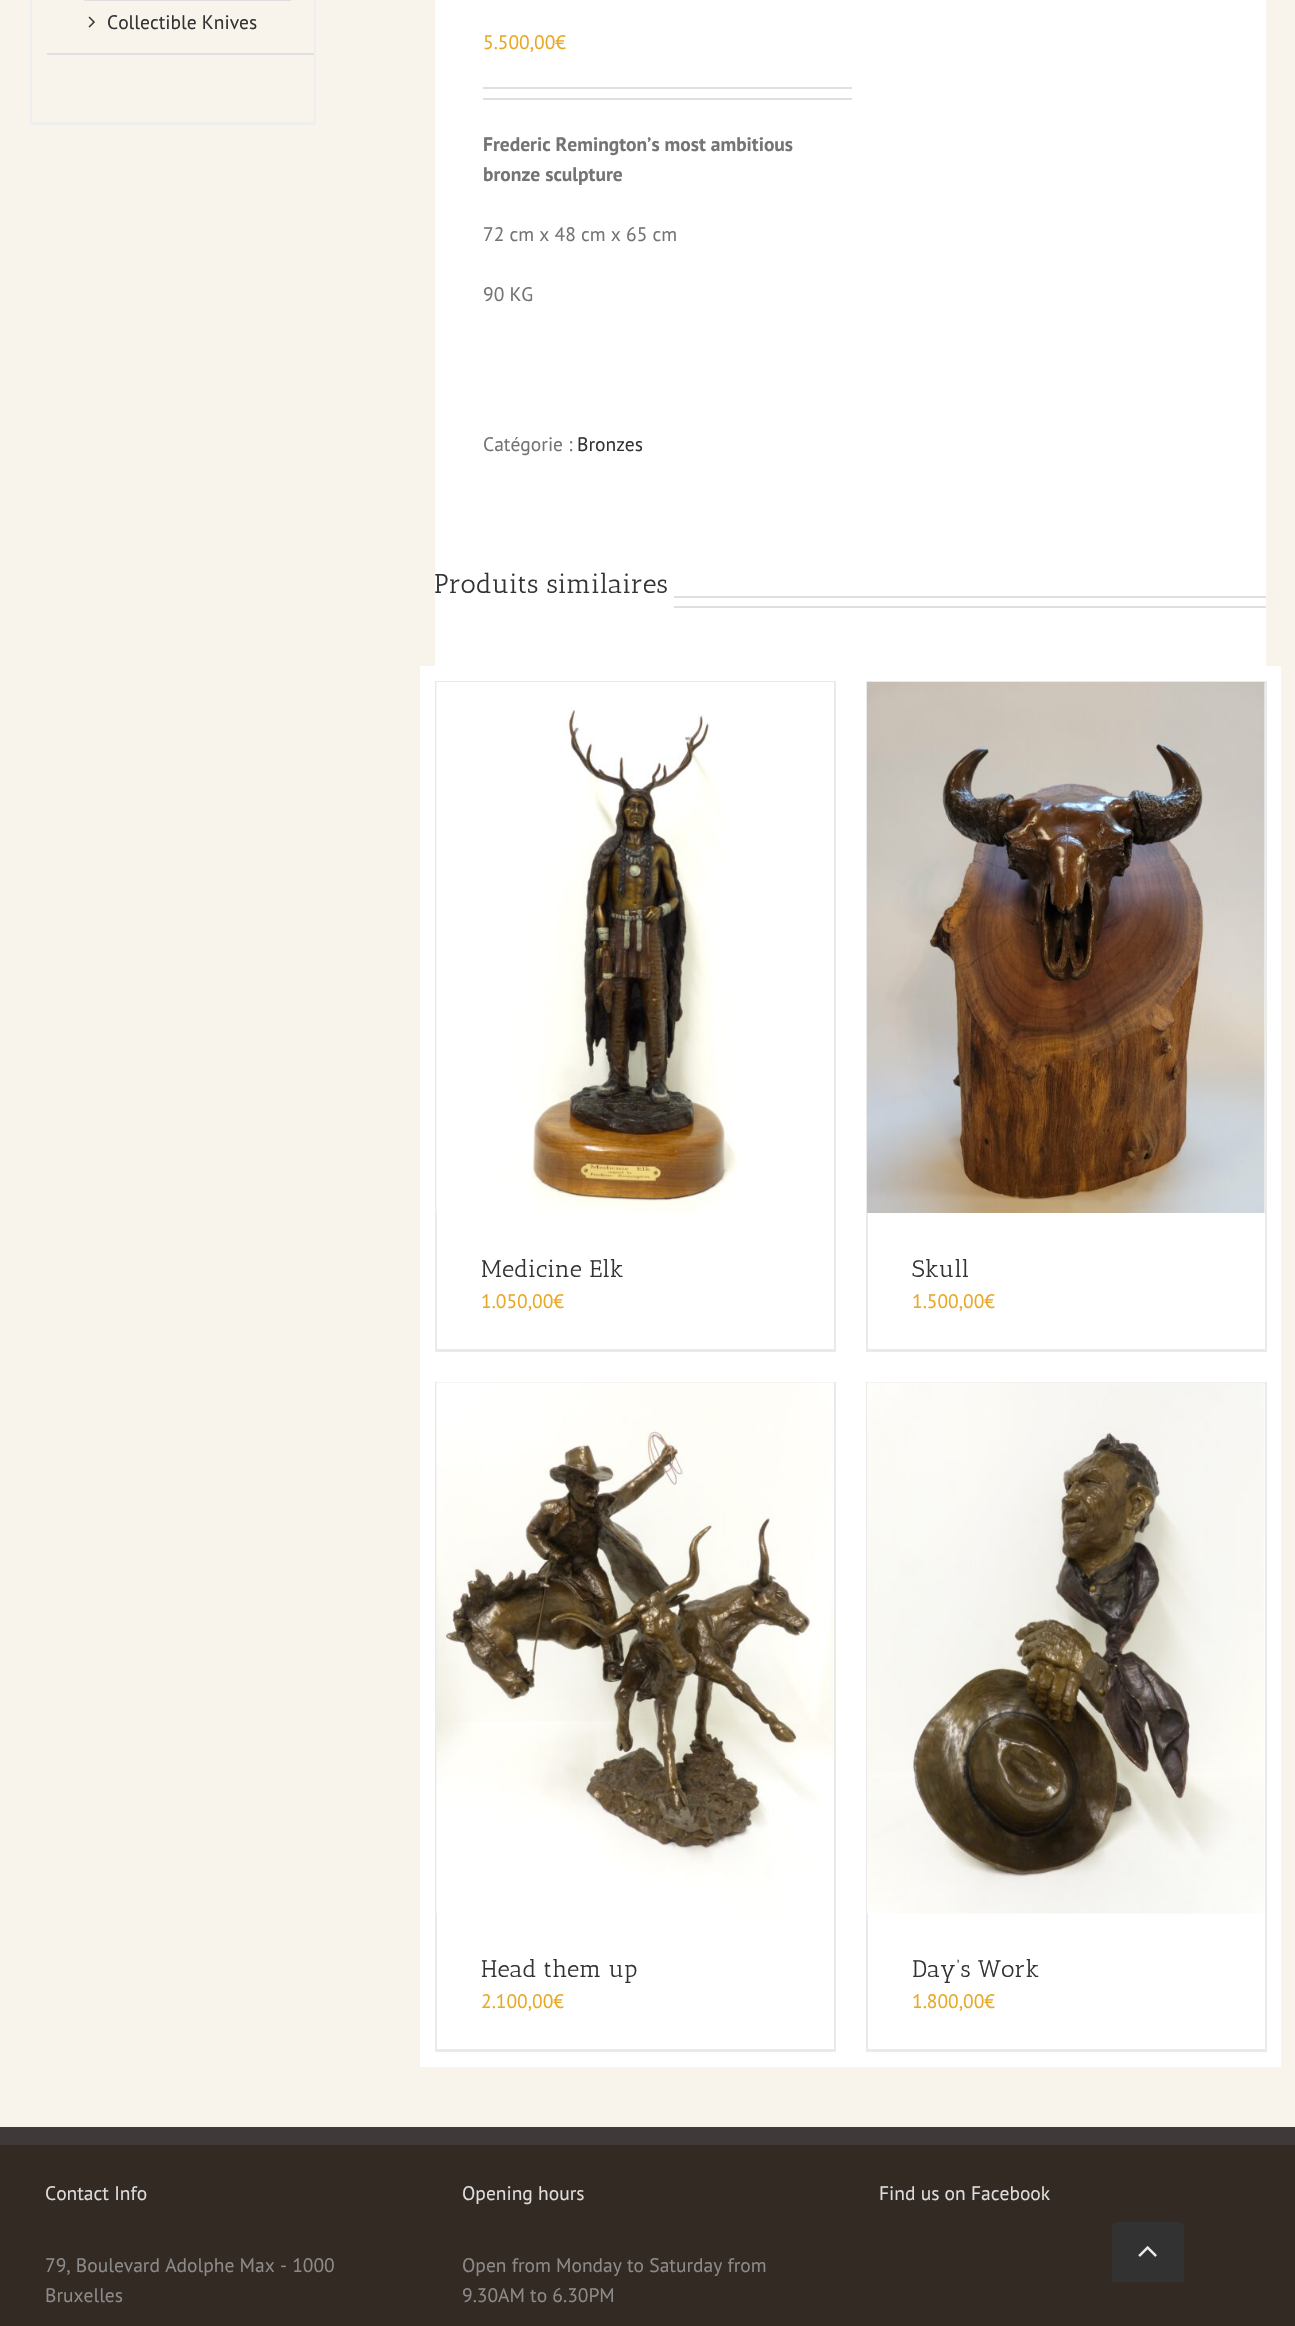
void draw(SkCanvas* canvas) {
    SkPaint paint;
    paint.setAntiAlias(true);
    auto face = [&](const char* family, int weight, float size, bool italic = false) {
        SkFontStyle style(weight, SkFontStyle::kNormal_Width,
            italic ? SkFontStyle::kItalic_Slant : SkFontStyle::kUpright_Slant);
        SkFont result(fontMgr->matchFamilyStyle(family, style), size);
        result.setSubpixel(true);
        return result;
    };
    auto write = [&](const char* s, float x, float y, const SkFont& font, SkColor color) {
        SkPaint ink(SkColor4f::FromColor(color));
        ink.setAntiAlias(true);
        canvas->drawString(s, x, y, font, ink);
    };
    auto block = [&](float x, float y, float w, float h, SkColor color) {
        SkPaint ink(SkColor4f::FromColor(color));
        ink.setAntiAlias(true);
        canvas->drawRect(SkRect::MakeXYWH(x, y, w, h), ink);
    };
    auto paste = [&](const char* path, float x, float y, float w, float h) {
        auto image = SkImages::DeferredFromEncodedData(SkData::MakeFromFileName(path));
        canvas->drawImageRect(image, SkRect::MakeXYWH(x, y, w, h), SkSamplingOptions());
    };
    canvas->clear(SkColorSetRGB(248, 244, 235));
    block(314, 0, 2, 125, SkColorSetRGB(239, 239, 239));
    block(30, 122, 285, 3, SkColorSetRGB(239, 239, 239));
    block(30, 0, 2, 125, SkColorSetRGB(239, 239, 239));
    block(47, 53, 267, 2, SkColorSetRGB(224, 222, 222));
    block(84, 0, 207, 1, SkColorSetRGB(224, 222, 222));
    paste("pic1.png", 88, 16, 7, 12);
    auto kFont1 = face("PT Sans", 400, 19.5f);
    write("Collectible Knives", 107, 29, kFont1, SkColorSetRGB(51, 51, 51));
    block(435, 0, 831, 666, SK_ColorWHITE);
    write("5.500,00€", 483, 49, kFont1, SkColorSetRGB(233, 168, 37));
    block(483, 87, 369, 2, SkColorSetRGB(224, 222, 222));
    block(483, 98, 369, 2, SkColorSetRGB(224, 222, 222));
    auto kFont2 = face("PT Sans", 700, 19.5f);
    write("Frederic Remington’s most ambitious", 483, 151, kFont2, SkColorSetRGB(116, 116, 116));
    write("bronze sculpture", 483, 181, kFont2, SkColorSetRGB(116, 116, 116));
    write("72 cm x 48 cm x 65 cm", 483, 241, kFont1, SkColorSetRGB(116, 116, 116));
    write("90 KG", 483, 301, kFont1, SkColorSetRGB(116, 116, 116));
    write("Catégorie :", 483, 451, kFont1, SkColorSetRGB(116, 116, 116));
    write("Bronzes", 577, 451, kFont1, SkColorSetRGB(51, 51, 51));
    auto kFont3 = face("Antic Slab", 400, 27);
    write("Produits similaires", 434, 593, kFont3, SkColorSetRGB(51, 51, 51));
    block(674, 596, 592, 2, SkColorSetRGB(224, 222, 222));
    block(674, 606, 592, 2, SkColorSetRGB(224, 222, 222));
    block(420, 666, 861, 701, SK_ColorWHITE);
    block(435, 681, 401, 1, SkColorSetRGB(235, 234, 234));
    block(834, 681, 2, 671, SkColorSetRGB(235, 234, 234));
    block(435, 1349, 401, 3, SkColorSetRGB(235, 234, 234));
    block(435, 681, 2, 671, SkColorSetRGB(235, 234, 234));
    paste("pic2.png", 436, 682, 398, 531);
    auto kFont4 = face("Antic Slab", 400, 24);
    write("Medicine Elk", 481, 1277, kFont4, SkColorSetRGB(51, 51, 51));
    write("1.050,00€", 481, 1308, kFont1, SkColorSetRGB(233, 168, 37));
    block(866, 681, 400, 2, SkColorSetRGB(235, 234, 234));
    block(1265, 681, 2, 671, SkColorSetRGB(235, 234, 234));
    block(866, 1349, 400, 3, SkColorSetRGB(235, 234, 234));
    block(866, 681, 2, 671, SkColorSetRGB(235, 234, 234));
    paste("pic3.png", 867, 682, 398, 531);
    write("Skull", 912, 1277, kFont4, SkColorSetRGB(51, 51, 51));
    write("1.500,00€", 912, 1308, kFont1, SkColorSetRGB(233, 168, 37));
    block(420, 1367, 861, 700, SK_ColorWHITE);
    block(435, 1382, 401, 1, SkColorSetRGB(235, 234, 234));
    block(834, 1382, 2, 670, SkColorSetRGB(235, 234, 234));
    block(435, 2049, 401, 3, SkColorSetRGB(235, 234, 234));
    block(435, 1382, 2, 670, SkColorSetRGB(235, 234, 234));
    paste("pic4.png", 436, 1382, 398, 532);
    write("Head them up", 481, 1977, kFont4, SkColorSetRGB(51, 51, 51));
    write("2.100,00€", 481, 2008, kFont1, SkColorSetRGB(233, 168, 37));
    block(866, 1382, 400, 2, SkColorSetRGB(235, 234, 234));
    block(1265, 1382, 2, 670, SkColorSetRGB(235, 234, 234));
    block(866, 2049, 400, 3, SkColorSetRGB(235, 234, 234));
    block(866, 1382, 2, 670, SkColorSetRGB(235, 234, 234));
    paste("pic5.png", 867, 1382, 398, 532);
    write("Day’s Work", 912, 1977, kFont4, SkColorSetRGB(51, 51, 51));
    write("1.800,00€", 912, 2008, kFont1, SkColorSetRGB(233, 168, 37));
    block(0, 2145, 1295, 181, SkColorSetRGB(51, 42, 36));
    block(0, 2127, 1295, 18, SkColorSetRGB(63, 58, 57));
    write("Contact Info", 45, 2200, kFont1, SkColorSetRGB(221, 221, 221));
    write("79, Boulevard Adolphe Max - 1000", 45, 2272, kFont1, SkColorSetRGB(140, 137, 137));
    write("Bruxelles", 45, 2302, kFont1, SkColorSetRGB(140, 137, 137));
    write("Opening hours", 462, 2200, kFont1, SkColorSetRGB(221, 221, 221));
    write("Open from Monday to Saturday from", 462, 2272, kFont1, SkColorSetRGB(140, 137, 137));
    write("9.30AM to 6.30PM", 462, 2302, kFont1, SkColorSetRGB(140, 137, 137));
    write("Find us on Facebook", 879, 2200, kFont1, SkColorSetRGB(221, 221, 221));
    paint.setColor(SkColorSetRGB(51, 50, 50));
    canvas->drawPath(SkPathBuilder().moveTo(1118, 2222).lineTo(1178, 2222).cubicTo(1181.5f, 2222, 1184, 2224.5f, 1184, 2228).lineTo(1184, 2282).lineTo(1112, 2282).lineTo(1112, 2228).cubicTo(1112, 2224.5f, 1114.5f, 2222, 1118, 2222).close().detach(), paint);
    paste("pic6.png", 1138, 2246, 19, 11);
}
